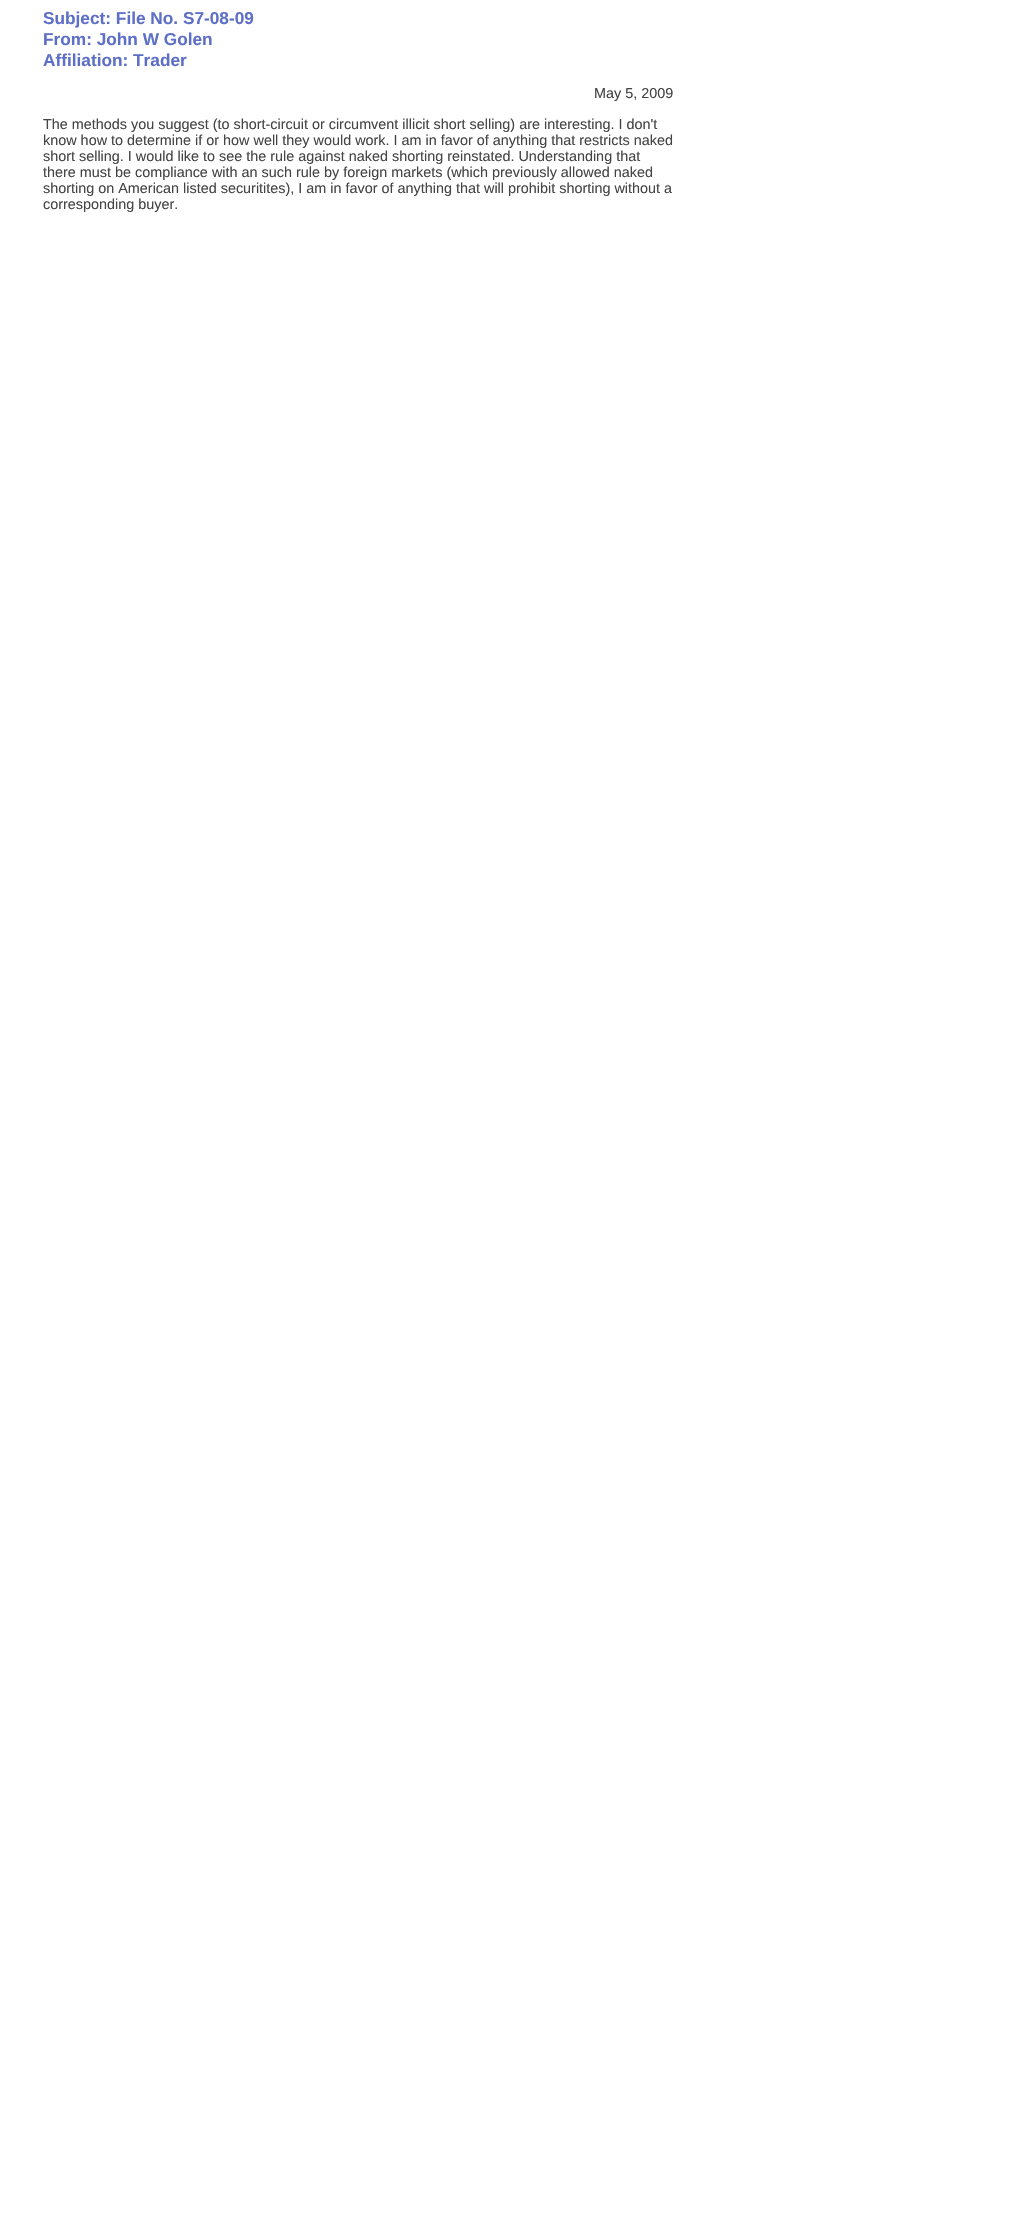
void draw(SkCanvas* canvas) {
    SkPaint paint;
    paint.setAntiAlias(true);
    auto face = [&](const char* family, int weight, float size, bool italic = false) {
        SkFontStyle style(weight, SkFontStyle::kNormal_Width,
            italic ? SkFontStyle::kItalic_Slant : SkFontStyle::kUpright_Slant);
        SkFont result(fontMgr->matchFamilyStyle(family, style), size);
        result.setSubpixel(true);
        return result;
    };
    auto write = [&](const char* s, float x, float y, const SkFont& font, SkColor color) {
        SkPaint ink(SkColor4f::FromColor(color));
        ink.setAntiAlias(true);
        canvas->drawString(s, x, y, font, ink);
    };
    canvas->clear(SK_ColorWHITE);
    auto kFont1 = face("Liberation Sans", 700, 17.25f);
    write("Subject: File No. S7-08-09", 43, 24, kFont1, SkColorSetRGB(93, 111, 199));
    write("From: John W Golen", 43, 45, kFont1, SkColorSetRGB(93, 111, 199));
    write("Affiliation: Trader", 43, 66, kFont1, SkColorSetRGB(93, 111, 199));
    auto kFont2 = face("Liberation Sans", 400, 14.4f);
    write("May 5, 2009", 594, 98, kFont2, SkColorSetRGB(69, 69, 69));
    write("The methods you suggest (to short-circuit or circumvent illicit short selling) are interesting. I don't", 43, 129, kFont2, SkColorSetRGB(69, 69, 69));
    write("know how to determine if or how well they would work. I am in favor of anything that restricts naked", 43, 145, kFont2, SkColorSetRGB(69, 69, 69));
    write("short selling. I would like to see the rule against naked shorting reinstated. Understanding that", 43, 161, kFont2, SkColorSetRGB(69, 69, 69));
    write("there must be compliance with an such rule by foreign markets (which previously allowed naked", 43, 177, kFont2, SkColorSetRGB(69, 69, 69));
    write("shorting on American listed securitites), I am in favor of anything that will prohibit shorting without a", 43, 193, kFont2, SkColorSetRGB(69, 69, 69));
    write("corresponding buyer.", 43, 209, kFont2, SkColorSetRGB(69, 69, 69));
}
